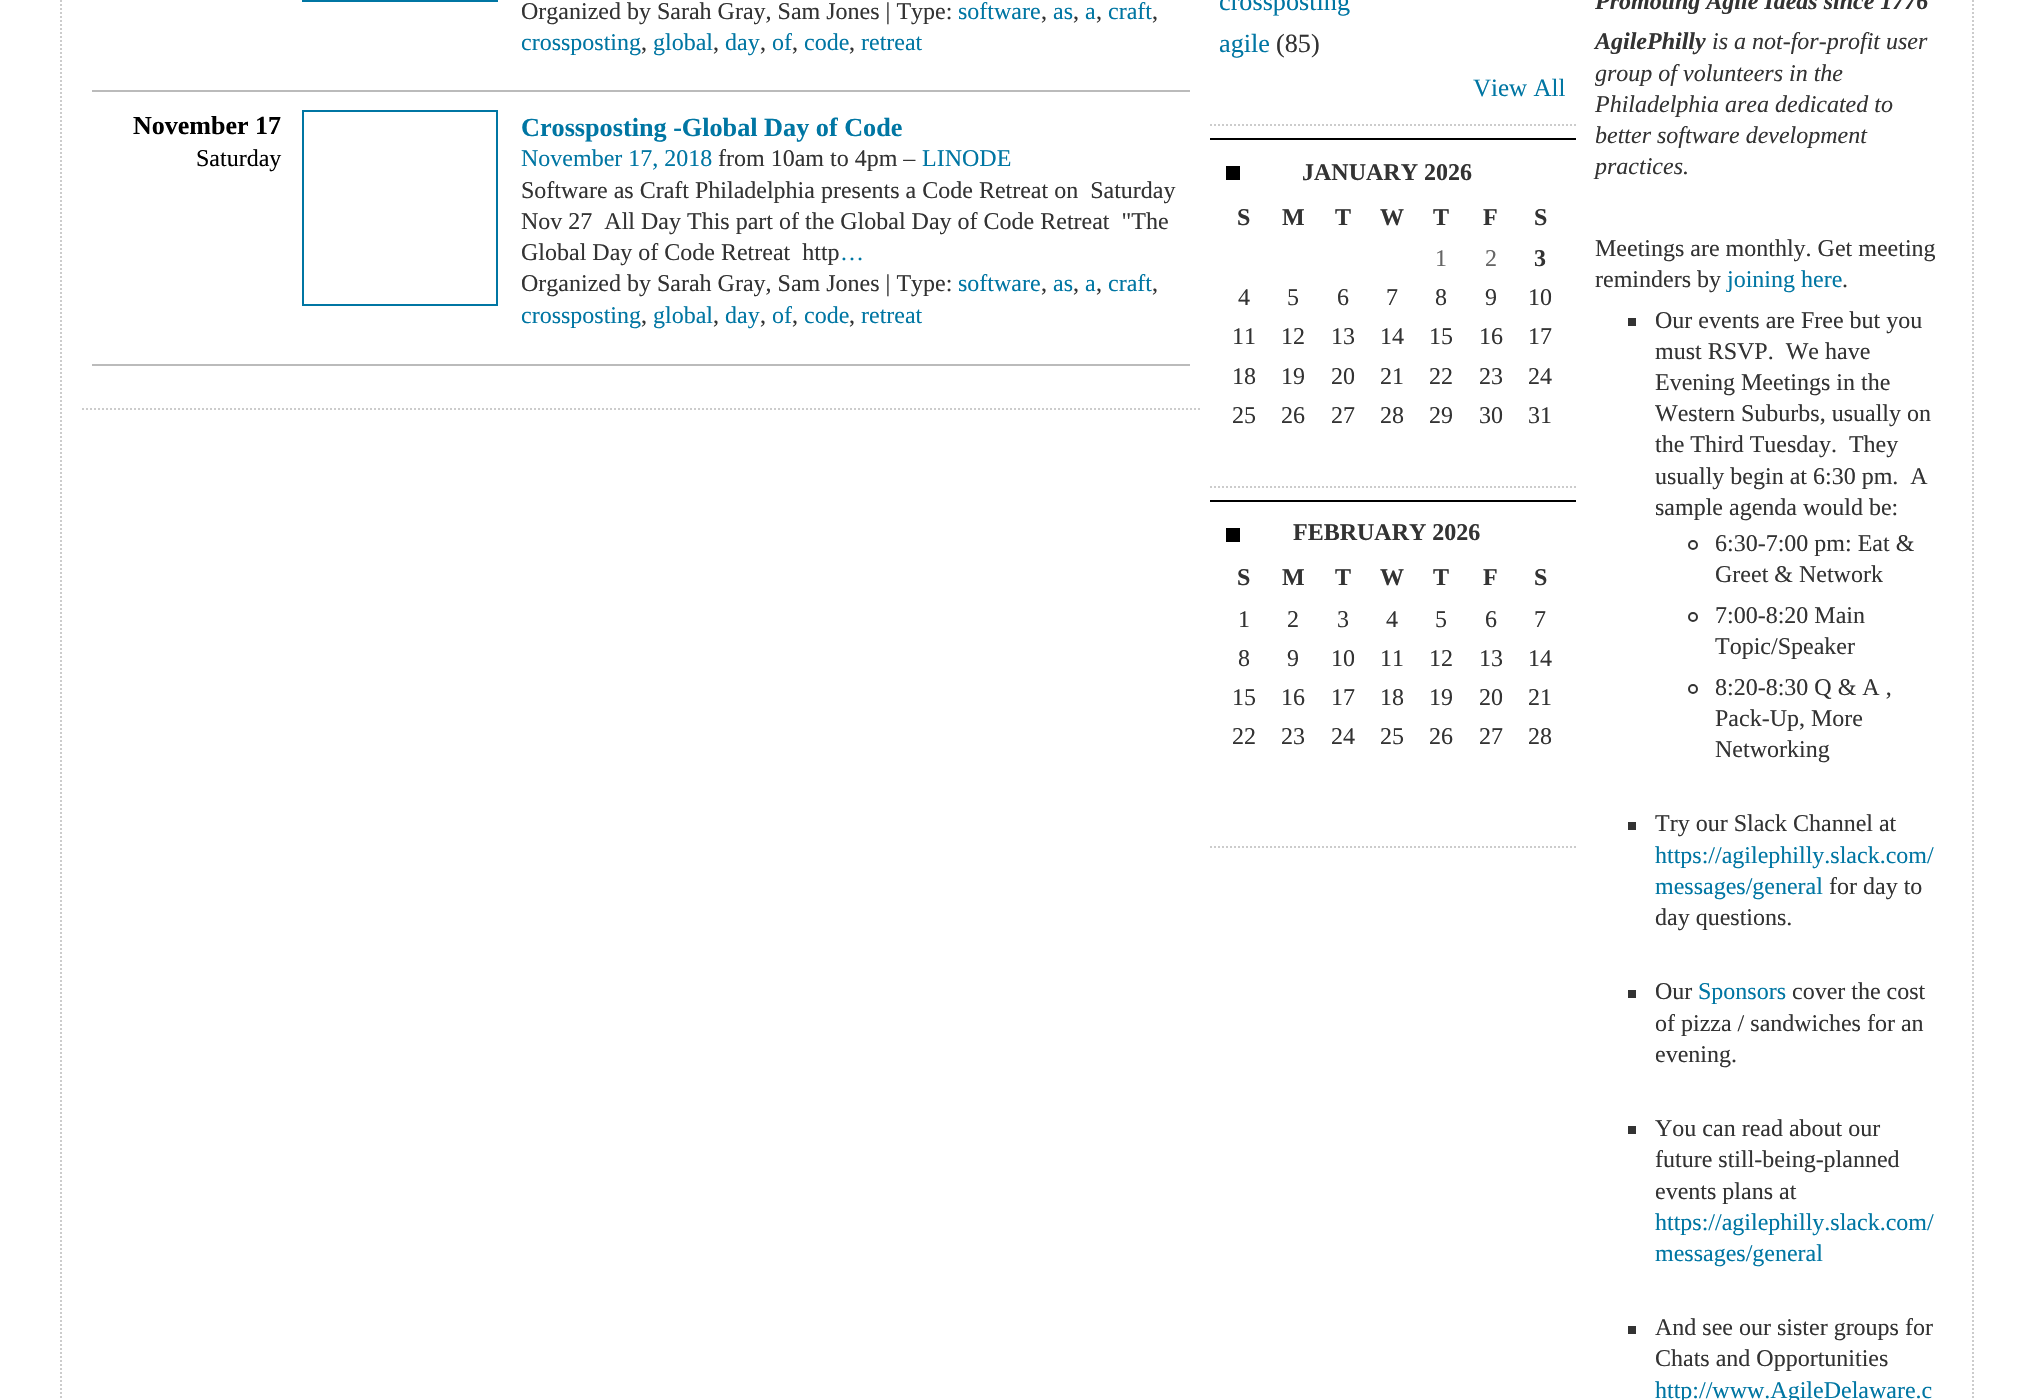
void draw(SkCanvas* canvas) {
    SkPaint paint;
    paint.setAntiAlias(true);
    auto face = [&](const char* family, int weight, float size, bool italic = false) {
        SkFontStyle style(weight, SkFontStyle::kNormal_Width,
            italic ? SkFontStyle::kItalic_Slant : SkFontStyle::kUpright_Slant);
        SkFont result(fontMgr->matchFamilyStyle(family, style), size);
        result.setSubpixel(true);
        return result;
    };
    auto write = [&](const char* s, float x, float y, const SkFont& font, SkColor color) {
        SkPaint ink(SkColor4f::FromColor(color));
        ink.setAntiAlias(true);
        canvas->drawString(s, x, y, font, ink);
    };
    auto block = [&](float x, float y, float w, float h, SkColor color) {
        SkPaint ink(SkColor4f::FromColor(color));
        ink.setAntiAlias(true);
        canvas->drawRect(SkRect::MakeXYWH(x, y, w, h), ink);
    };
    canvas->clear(SK_ColorWHITE);
    paint.setStyle(SkPaint::kStroke_Style);
    paint.setStrokeWidth(2);
    paint.setColor(SkColorSetRGB(204, 204, 204));
    paint.setPathEffect(SkDashPathEffect::Make({{2, 2}}, 0));
    canvas->drawPath(SkPathBuilder().moveTo(1973, -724).lineTo(1973, 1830).detach(), paint);
    paint.setPathEffect(nullptr);
    paint.setPathEffect(SkDashPathEffect::Make({{2, 2}}, 0));
    canvas->drawPath(SkPathBuilder().moveTo(61, -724).lineTo(61, 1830).detach(), paint);
    paint.setPathEffect(nullptr);
    paint.setPathEffect(SkDashPathEffect::Make({{2, 2}}, 0));
    canvas->drawPath(SkPathBuilder().moveTo(82, 409).lineTo(1200, 409).detach(), paint);
    paint.setPathEffect(nullptr);
    block(92, 90, 1098, 2, SkColorSetRGB(187, 187, 187));
    paint.setColor(SkColorSetRGB(0, 118, 163));
    canvas->drawRect(SkRect::MakeXYWH(303, -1, 194, 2), paint);
    auto kFont1 = face("Liberation Serif", 400, 24);
    write("Organized by Sarah Gray, Sam Jones | Type:", 521, 19, kFont1, SkColorSetRGB(51, 51, 51));
    write("software", 958, 19, kFont1, SkColorSetRGB(0, 118, 163));
    write(",", 1041, 19, kFont1, SkColorSetRGB(51, 51, 51));
    write("as", 1053, 19, kFont1, SkColorSetRGB(0, 118, 163));
    write(",", 1073, 19, kFont1, SkColorSetRGB(51, 51, 51));
    write("a", 1085, 19, kFont1, SkColorSetRGB(0, 118, 163));
    write(",", 1096, 19, kFont1, SkColorSetRGB(51, 51, 51));
    write("craft", 1108, 19, kFont1, SkColorSetRGB(0, 118, 163));
    write(",", 1152, 19, kFont1, SkColorSetRGB(51, 51, 51));
    write("crossposting", 521, 50, kFont1, SkColorSetRGB(0, 118, 163));
    write(",", 641, 50, kFont1, SkColorSetRGB(51, 51, 51));
    write("global", 653, 50, kFont1, SkColorSetRGB(0, 118, 163));
    write(",", 713, 50, kFont1, SkColorSetRGB(51, 51, 51));
    write("day", 725, 50, kFont1, SkColorSetRGB(0, 118, 163));
    write(",", 760, 50, kFont1, SkColorSetRGB(51, 51, 51));
    write("of", 772, 50, kFont1, SkColorSetRGB(0, 118, 163));
    write(",", 792, 50, kFont1, SkColorSetRGB(51, 51, 51));
    write("code", 804, 50, kFont1, SkColorSetRGB(0, 118, 163));
    write(",", 849, 50, kFont1, SkColorSetRGB(51, 51, 51));
    write("retreat", 861, 50, kFont1, SkColorSetRGB(0, 118, 163));
    block(92, 364, 1098, 2, SkColorSetRGB(187, 187, 187));
    auto kFont2 = face("Liberation Serif", 700, 26);
    write("November 17", 133, 134, kFont2, SK_ColorBLACK);
    write("Saturday", 196, 166, kFont1, SK_ColorBLACK);
    canvas->drawRect(SkRect::MakeXYWH(303, 111, 194, 194), paint);
    auto kFont3 = face("Liberation Serif", 700, 26.2f);
    write("Crossposting -Global Day of Code", 521, 136, kFont3, SkColorSetRGB(0, 118, 163));
    write("November 17, 2018", 521, 166, kFont1, SkColorSetRGB(0, 118, 163));
    write("from 10am to 4pm –", 718, 166, kFont1, SkColorSetRGB(51, 51, 51));
    write("LINODE", 922, 166, kFont1, SkColorSetRGB(0, 118, 163));
    write("Software as Craft Philadelphia presents a Code Retreat on  Saturday", 521, 198, kFont1, SkColorSetRGB(51, 51, 51));
    write("Nov 27  All Day This part of the Global Day of Code Retreat  \"The", 521, 229, kFont1, SkColorSetRGB(51, 51, 51));
    write("Global Day of Code Retreat  http", 521, 260, kFont1, SkColorSetRGB(51, 51, 51));
    write("…", 840, 260, kFont1, SkColorSetRGB(0, 118, 163));
    write("Organized by Sarah Gray, Sam Jones | Type:", 521, 291, kFont1, SkColorSetRGB(51, 51, 51));
    write("software", 958, 291, kFont1, SkColorSetRGB(0, 118, 163));
    write(",", 1041, 291, kFont1, SkColorSetRGB(51, 51, 51));
    write("as", 1053, 291, kFont1, SkColorSetRGB(0, 118, 163));
    write(",", 1073, 291, kFont1, SkColorSetRGB(51, 51, 51));
    write("a", 1085, 291, kFont1, SkColorSetRGB(0, 118, 163));
    write(",", 1096, 291, kFont1, SkColorSetRGB(51, 51, 51));
    write("craft", 1108, 291, kFont1, SkColorSetRGB(0, 118, 163));
    write(",", 1152, 291, kFont1, SkColorSetRGB(51, 51, 51));
    write("crossposting", 521, 323, kFont1, SkColorSetRGB(0, 118, 163));
    write(",", 641, 323, kFont1, SkColorSetRGB(51, 51, 51));
    write("global", 653, 323, kFont1, SkColorSetRGB(0, 118, 163));
    write(",", 713, 323, kFont1, SkColorSetRGB(51, 51, 51));
    write("day", 725, 323, kFont1, SkColorSetRGB(0, 118, 163));
    write(",", 760, 323, kFont1, SkColorSetRGB(51, 51, 51));
    write("of", 772, 323, kFont1, SkColorSetRGB(0, 118, 163));
    write(",", 792, 323, kFont1, SkColorSetRGB(51, 51, 51));
    write("code", 804, 323, kFont1, SkColorSetRGB(0, 118, 163));
    write(",", 849, 323, kFont1, SkColorSetRGB(51, 51, 51));
    write("retreat", 861, 323, kFont1, SkColorSetRGB(0, 118, 163));
    paint.setColor(SkColorSetRGB(204, 204, 204));
    paint.setPathEffect(SkDashPathEffect::Make({{2, 2}}, 0));
    canvas->drawPath(SkPathBuilder().moveTo(1210, 125).lineTo(1576, 125).detach(), paint);
    paint.setPathEffect(nullptr);
    auto kFont4 = face("Liberation Serif", 400, 26.2f);
    write("crossposting", 1219, 10, kFont4, SkColorSetRGB(0, 118, 163));
    write("agile", 1219, 52, kFont4, SkColorSetRGB(0, 118, 163));
    write("(85)", 1276, 52, kFont4, SkColorSetRGB(51, 51, 51));
    auto kFont5 = face("Liberation Serif", 400, 25);
    write("View All", 1473, 96, kFont5, SkColorSetRGB(0, 118, 163));
    block(1210, 138, 366, 2, SK_ColorBLACK);
    paint.setPathEffect(SkDashPathEffect::Make({{2, 2}}, 0));
    canvas->drawPath(SkPathBuilder().moveTo(1210, 487).lineTo(1576, 487).detach(), paint);
    paint.setPathEffect(nullptr);
    block(1226, 166, 14, 14, SK_ColorBLACK);
    auto kFont6 = face("Liberation Serif", 700, 24);
    write("JANUARY 2026", 1302, 180, kFont6, SkColorSetRGB(51, 51, 51));
    write("S", 1237, 225, kFont6, SkColorSetRGB(51, 51, 51));
    write("M", 1282, 225, kFont6, SkColorSetRGB(51, 51, 51));
    write("T", 1335, 225, kFont6, SkColorSetRGB(51, 51, 51));
    write("W", 1380, 225, kFont6, SkColorSetRGB(51, 51, 51));
    write("T", 1433, 225, kFont6, SkColorSetRGB(51, 51, 51));
    write("F", 1483, 225, kFont6, SkColorSetRGB(51, 51, 51));
    write("S", 1534, 225, kFont6, SkColorSetRGB(51, 51, 51));
    write("1", 1435, 266, kFont1, SkColorSetRGB(102, 102, 102));
    write("2", 1485, 266, kFont1, SkColorSetRGB(102, 102, 102));
    write("3", 1534, 266, kFont6, SkColorSetRGB(51, 51, 51));
    write("4", 1238, 305, kFont1, SkColorSetRGB(51, 51, 51));
    write("5", 1287, 305, kFont1, SkColorSetRGB(51, 51, 51));
    write("6", 1337, 305, kFont1, SkColorSetRGB(51, 51, 51));
    write("7", 1386, 305, kFont1, SkColorSetRGB(51, 51, 51));
    write("8", 1435, 305, kFont1, SkColorSetRGB(51, 51, 51));
    write("9", 1485, 305, kFont1, SkColorSetRGB(51, 51, 51));
    write("10", 1528, 305, kFont1, SkColorSetRGB(51, 51, 51));
    write("11", 1232, 344, kFont1, SkColorSetRGB(51, 51, 51));
    write("12", 1281, 344, kFont1, SkColorSetRGB(51, 51, 51));
    write("13", 1331, 344, kFont1, SkColorSetRGB(51, 51, 51));
    write("14", 1380, 344, kFont1, SkColorSetRGB(51, 51, 51));
    write("15", 1429, 344, kFont1, SkColorSetRGB(51, 51, 51));
    write("16", 1479, 344, kFont1, SkColorSetRGB(51, 51, 51));
    write("17", 1528, 344, kFont1, SkColorSetRGB(51, 51, 51));
    write("18", 1232, 384, kFont1, SkColorSetRGB(51, 51, 51));
    write("19", 1281, 384, kFont1, SkColorSetRGB(51, 51, 51));
    write("20", 1331, 384, kFont1, SkColorSetRGB(51, 51, 51));
    write("21", 1380, 384, kFont1, SkColorSetRGB(51, 51, 51));
    write("22", 1429, 384, kFont1, SkColorSetRGB(51, 51, 51));
    write("23", 1479, 384, kFont1, SkColorSetRGB(51, 51, 51));
    write("24", 1528, 384, kFont1, SkColorSetRGB(51, 51, 51));
    write("25", 1232, 423, kFont1, SkColorSetRGB(51, 51, 51));
    write("26", 1281, 423, kFont1, SkColorSetRGB(51, 51, 51));
    write("27", 1331, 423, kFont1, SkColorSetRGB(51, 51, 51));
    write("28", 1380, 423, kFont1, SkColorSetRGB(51, 51, 51));
    write("29", 1429, 423, kFont1, SkColorSetRGB(51, 51, 51));
    write("30", 1479, 423, kFont1, SkColorSetRGB(51, 51, 51));
    write("31", 1528, 423, kFont1, SkColorSetRGB(51, 51, 51));
    block(1210, 500, 366, 2, SK_ColorBLACK);
    paint.setPathEffect(SkDashPathEffect::Make({{2, 2}}, 0));
    canvas->drawPath(SkPathBuilder().moveTo(1210, 847).lineTo(1576, 847).detach(), paint);
    paint.setPathEffect(nullptr);
    block(1226, 528, 14, 14, SK_ColorBLACK);
    write("FEBRUARY 2026", 1293, 540, kFont6, SkColorSetRGB(51, 51, 51));
    write("S", 1237, 585, kFont6, SkColorSetRGB(51, 51, 51));
    write("M", 1282, 585, kFont6, SkColorSetRGB(51, 51, 51));
    write("T", 1335, 585, kFont6, SkColorSetRGB(51, 51, 51));
    write("W", 1380, 585, kFont6, SkColorSetRGB(51, 51, 51));
    write("T", 1433, 585, kFont6, SkColorSetRGB(51, 51, 51));
    write("F", 1483, 585, kFont6, SkColorSetRGB(51, 51, 51));
    write("S", 1534, 585, kFont6, SkColorSetRGB(51, 51, 51));
    write("1", 1238, 627, kFont1, SkColorSetRGB(51, 51, 51));
    write("2", 1287, 627, kFont1, SkColorSetRGB(51, 51, 51));
    write("3", 1337, 627, kFont1, SkColorSetRGB(51, 51, 51));
    write("4", 1386, 627, kFont1, SkColorSetRGB(51, 51, 51));
    write("5", 1435, 627, kFont1, SkColorSetRGB(51, 51, 51));
    write("6", 1485, 627, kFont1, SkColorSetRGB(51, 51, 51));
    write("7", 1534, 627, kFont1, SkColorSetRGB(51, 51, 51));
    write("8", 1238, 666, kFont1, SkColorSetRGB(51, 51, 51));
    write("9", 1287, 666, kFont1, SkColorSetRGB(51, 51, 51));
    write("10", 1331, 666, kFont1, SkColorSetRGB(51, 51, 51));
    write("11", 1380, 666, kFont1, SkColorSetRGB(51, 51, 51));
    write("12", 1429, 666, kFont1, SkColorSetRGB(51, 51, 51));
    write("13", 1479, 666, kFont1, SkColorSetRGB(51, 51, 51));
    write("14", 1528, 666, kFont1, SkColorSetRGB(51, 51, 51));
    write("15", 1232, 705, kFont1, SkColorSetRGB(51, 51, 51));
    write("16", 1281, 705, kFont1, SkColorSetRGB(51, 51, 51));
    write("17", 1331, 705, kFont1, SkColorSetRGB(51, 51, 51));
    write("18", 1380, 705, kFont1, SkColorSetRGB(51, 51, 51));
    write("19", 1429, 705, kFont1, SkColorSetRGB(51, 51, 51));
    write("20", 1479, 705, kFont1, SkColorSetRGB(51, 51, 51));
    write("21", 1528, 705, kFont1, SkColorSetRGB(51, 51, 51));
    write("22", 1232, 744, kFont1, SkColorSetRGB(51, 51, 51));
    write("23", 1281, 744, kFont1, SkColorSetRGB(51, 51, 51));
    write("24", 1331, 744, kFont1, SkColorSetRGB(51, 51, 51));
    write("25", 1380, 744, kFont1, SkColorSetRGB(51, 51, 51));
    write("26", 1429, 744, kFont1, SkColorSetRGB(51, 51, 51));
    write("27", 1479, 744, kFont1, SkColorSetRGB(51, 51, 51));
    write("28", 1528, 744, kFont1, SkColorSetRGB(51, 51, 51));
    auto kFont7 = face("Liberation Serif", 700, 24, true);
    write("Promoting Agile Ideas since 1776", 1595, 9, kFont7, SkColorSetRGB(51, 51, 51));
    write("AgilePhilly", 1595, 49, kFont7, SkColorSetRGB(51, 51, 51));
    auto kFont8 = face("Liberation Serif", 400, 24, true);
    write("is a not-for-profit user", 1712, 49, kFont8, SkColorSetRGB(51, 51, 51));
    write("group of volunteers in the", 1595, 81, kFont8, SkColorSetRGB(51, 51, 51));
    write("Philadelphia area dedicated to", 1595, 112, kFont8, SkColorSetRGB(51, 51, 51));
    write("better software development", 1595, 143, kFont8, SkColorSetRGB(51, 51, 51));
    write("practices.", 1595, 174, kFont8, SkColorSetRGB(51, 51, 51));
    write("Meetings are monthly. Get meeting", 1595, 256, kFont1, SkColorSetRGB(51, 51, 51));
    write("reminders by", 1595, 287, kFont1, SkColorSetRGB(51, 51, 51));
    write("joining here", 1727, 287, kFont1, SkColorSetRGB(0, 118, 163));
    write(".", 1842, 287, kFont1, SkColorSetRGB(51, 51, 51));
    block(1628, 318, 8, 8, SkColorSetRGB(51, 51, 51));
    write("Our events are Free but you", 1655, 328, kFont1, SkColorSetRGB(51, 51, 51));
    write("must RSVP.  We have", 1655, 359, kFont1, SkColorSetRGB(51, 51, 51));
    write("Evening Meetings in the", 1655, 390, kFont1, SkColorSetRGB(51, 51, 51));
    write("Western Suburbs, usually on", 1655, 421, kFont1, SkColorSetRGB(51, 51, 51));
    write("the Third Tuesday.  They", 1655, 452, kFont1, SkColorSetRGB(51, 51, 51));
    write("usually begin at 6:30 pm.  A", 1655, 484, kFont1, SkColorSetRGB(51, 51, 51));
    write("sample agenda would be:", 1655, 515, kFont1, SkColorSetRGB(51, 51, 51));
    paint.setColor(SkColorSetRGB(51, 51, 51));
    canvas->drawCircle(1693, 545, 4, paint);
    write("6:30-7:00 pm: Eat &", 1715, 551, kFont1, SkColorSetRGB(51, 51, 51));
    write("Greet & Network", 1715, 582, kFont1, SkColorSetRGB(51, 51, 51));
    canvas->drawCircle(1693, 617, 4, paint);
    write("7:00-8:20 Main", 1715, 623, kFont1, SkColorSetRGB(51, 51, 51));
    write("Topic/Speaker", 1715, 654, kFont1, SkColorSetRGB(51, 51, 51));
    canvas->drawCircle(1693, 689, 4, paint);
    write("8:20-8:30 Q & A ,", 1715, 695, kFont1, SkColorSetRGB(51, 51, 51));
    write("Pack-Up, More", 1715, 726, kFont1, SkColorSetRGB(51, 51, 51));
    write("Networking", 1715, 757, kFont1, SkColorSetRGB(51, 51, 51));
    block(1628, 822, 8, 8, SkColorSetRGB(51, 51, 51));
    write("Try our Slack Channel at", 1655, 831, kFont1, SkColorSetRGB(51, 51, 51));
    write("https://agilephilly.slack.com/", 1655, 863, kFont1, SkColorSetRGB(0, 118, 163));
    write("messages/general", 1655, 894, kFont1, SkColorSetRGB(0, 118, 163));
    write("for day to", 1829, 894, kFont1, SkColorSetRGB(51, 51, 51));
    write("day questions.", 1655, 925, kFont1, SkColorSetRGB(51, 51, 51));
    block(1628, 990, 8, 8, SkColorSetRGB(51, 51, 51));
    write("Our", 1655, 999, kFont1, SkColorSetRGB(51, 51, 51));
    write("Sponsors", 1698, 999, kFont1, SkColorSetRGB(0, 118, 163));
    write("cover the cost", 1792, 999, kFont1, SkColorSetRGB(51, 51, 51));
    write("of pizza / sandwiches for an", 1655, 1031, kFont1, SkColorSetRGB(51, 51, 51));
    write("evening.", 1655, 1062, kFont1, SkColorSetRGB(51, 51, 51));
    block(1628, 1126, 8, 8, SkColorSetRGB(51, 51, 51));
    write("You can read about our", 1655, 1136, kFont1, SkColorSetRGB(51, 51, 51));
    write("future still-being-planned", 1655, 1167, kFont1, SkColorSetRGB(51, 51, 51));
    write("events plans at", 1655, 1199, kFont1, SkColorSetRGB(51, 51, 51));
    write("https://agilephilly.slack.com/", 1655, 1230, kFont1, SkColorSetRGB(0, 118, 163));
    write("messages/general", 1655, 1261, kFont1, SkColorSetRGB(0, 118, 163));
    block(1628, 1326, 8, 8, SkColorSetRGB(51, 51, 51));
    write("And see our sister groups for", 1655, 1335, kFont1, SkColorSetRGB(51, 51, 51));
    write("Chats and Opportunities", 1655, 1366, kFont1, SkColorSetRGB(51, 51, 51));
    write("http://www.AgileDelaware.c", 1655, 1398, kFont1, SkColorSetRGB(0, 118, 163));
}
